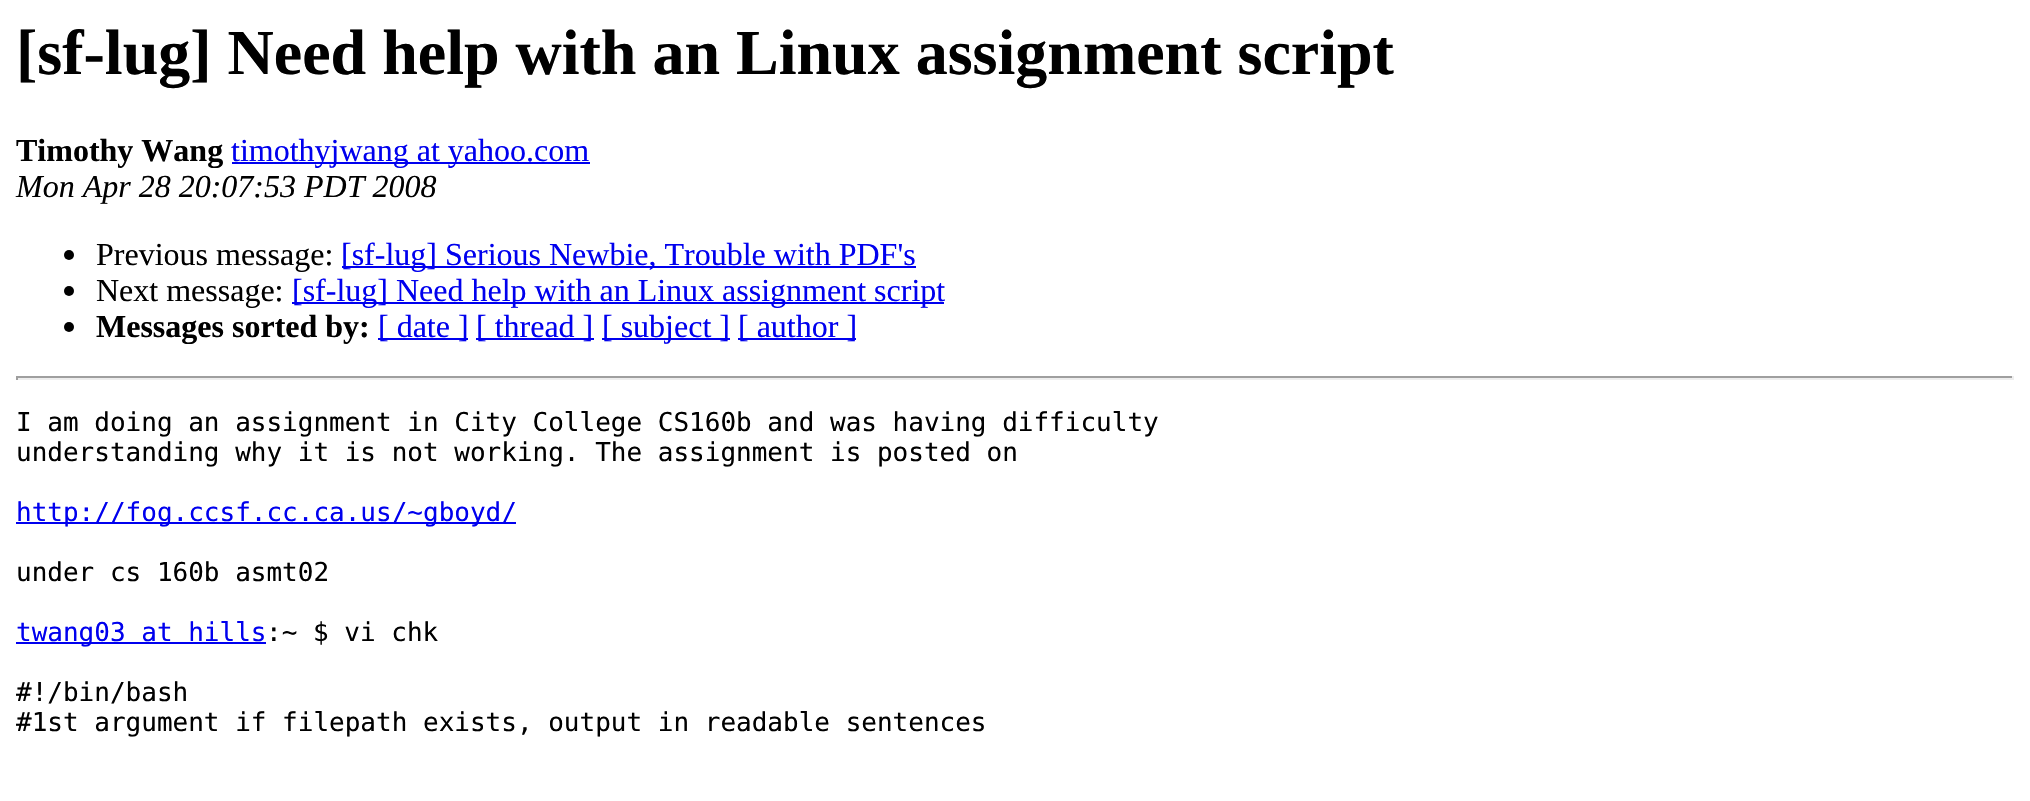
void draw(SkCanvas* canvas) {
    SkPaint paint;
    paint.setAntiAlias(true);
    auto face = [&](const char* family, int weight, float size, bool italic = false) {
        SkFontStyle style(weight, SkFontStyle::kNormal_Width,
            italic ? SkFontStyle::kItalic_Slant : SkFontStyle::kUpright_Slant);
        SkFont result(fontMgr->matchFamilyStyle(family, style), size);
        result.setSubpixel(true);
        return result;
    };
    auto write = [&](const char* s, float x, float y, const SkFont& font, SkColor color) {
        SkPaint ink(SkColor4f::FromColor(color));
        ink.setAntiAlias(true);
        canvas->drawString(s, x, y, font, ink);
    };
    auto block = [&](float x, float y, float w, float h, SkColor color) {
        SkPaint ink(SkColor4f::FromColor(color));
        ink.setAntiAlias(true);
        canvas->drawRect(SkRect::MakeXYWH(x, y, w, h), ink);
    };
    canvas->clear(SK_ColorWHITE);
    auto kFont1 = face("Liberation Serif", 700, 64);
    write("[sf-lug] Need help with an Linux assignment script", 16, 74, kFont1, SK_ColorBLACK);
    auto kFont2 = face("Liberation Serif", 700, 32);
    write("Timothy Wang", 16, 161, kFont2, SK_ColorBLACK);
    block(232, 162, 358, 2, SkColorSetRGB(0, 0, 238));
    auto kFont3 = face("Liberation Serif", 400, 32);
    write("timothyjwang at yahoo.com", 231, 161, kFont3, SkColorSetRGB(0, 0, 238));
    auto kFont4 = face("Liberation Serif", 400, 32, true);
    write("Mon Apr 28 20:07:53 PDT 2008", 16, 197, kFont4, SK_ColorBLACK);
    paint.setColor(SK_ColorBLACK);
    canvas->drawCircle(69, 255, 5, paint);
    write("Previous message:", 96, 265, kFont3, SK_ColorBLACK);
    block(342, 266, 574, 2, SkColorSetRGB(0, 0, 238));
    write("[sf-lug] Serious Newbie, Trouble with PDF's", 341, 265, kFont3, SkColorSetRGB(0, 0, 238));
    canvas->drawCircle(69, 291, 5, paint);
    write("Next message:", 96, 301, kFont3, SK_ColorBLACK);
    block(292, 302, 652, 2, SkColorSetRGB(0, 0, 238));
    write("[sf-lug] Need help with an Linux assignment script", 292, 301, kFont3, SkColorSetRGB(0, 0, 238));
    canvas->drawCircle(69, 327, 5, paint);
    write("Messages sorted by:", 96, 337, kFont2, SK_ColorBLACK);
    block(378, 338, 90, 2, SkColorSetRGB(0, 0, 238));
    write("[ date ]", 378, 337, kFont3, SkColorSetRGB(0, 0, 238));
    block(476, 338, 118, 2, SkColorSetRGB(0, 0, 238));
    write("[ thread ]", 476, 337, kFont3, SkColorSetRGB(0, 0, 238));
    block(602, 338, 128, 2, SkColorSetRGB(0, 0, 238));
    write("[ subject ]", 602, 337, kFont3, SkColorSetRGB(0, 0, 238));
    block(738, 338, 118, 2, SkColorSetRGB(0, 0, 238));
    write("[ author ]", 738, 337, kFont3, SkColorSetRGB(0, 0, 238));
    block(16, 376, 1998, 2, SkColorSetRGB(159, 159, 159));
    block(2012, 376, 2, 4, SkColorSetRGB(238, 238, 238));
    block(16, 378, 1998, 2, SkColorSetRGB(238, 238, 238));
    block(16, 376, 2, 4, SkColorSetRGB(159, 159, 159));
    auto kFont5 = face("DejaVu Sans Mono", 400, 26);
    write("I am doing an assignment in City College CS160b and was having difficulty", 16, 431, kFont5, SK_ColorBLACK);
    write("understanding why it is not working. The assignment is posted on", 16, 461, kFont5, SK_ColorBLACK);
    block(16, 522, 500, 2, SkColorSetRGB(0, 0, 238));
    write("http://fog.ccsf.cc.ca.us/~gboyd/", 16, 521, kFont5, SkColorSetRGB(0, 0, 238));
    write("under cs 160b asmt02", 16, 581, kFont5, SK_ColorBLACK);
    block(16, 642, 250, 2, SkColorSetRGB(0, 0, 238));
    write("twang03 at hills", 16, 641, kFont5, SkColorSetRGB(0, 0, 238));
    write(":~ $ vi chk", 266, 641, kFont5, SK_ColorBLACK);
    write("#!/bin/bash", 16, 701, kFont5, SK_ColorBLACK);
    write("#1st argument if filepath exists, output in readable sentences", 16, 731, kFont5, SK_ColorBLACK);
}
